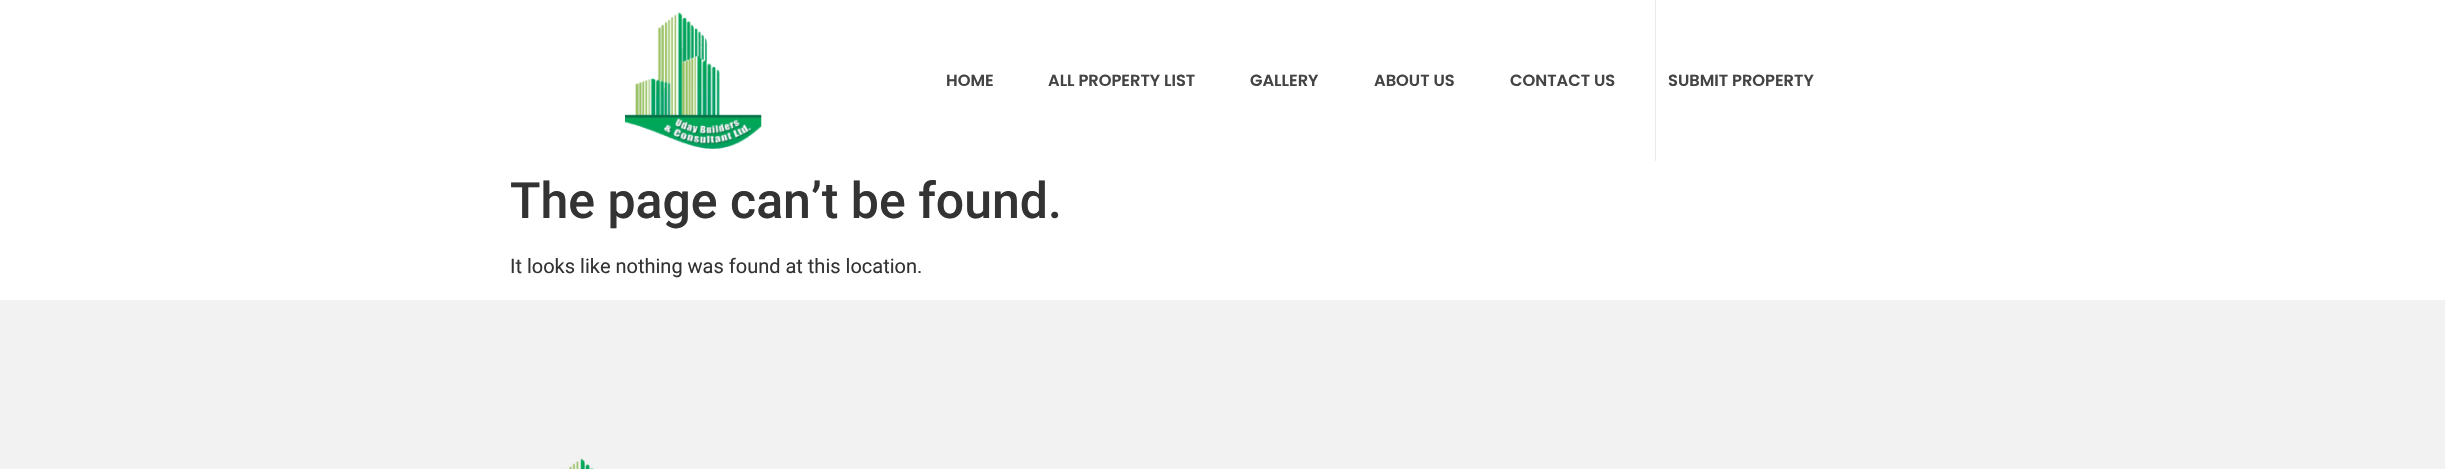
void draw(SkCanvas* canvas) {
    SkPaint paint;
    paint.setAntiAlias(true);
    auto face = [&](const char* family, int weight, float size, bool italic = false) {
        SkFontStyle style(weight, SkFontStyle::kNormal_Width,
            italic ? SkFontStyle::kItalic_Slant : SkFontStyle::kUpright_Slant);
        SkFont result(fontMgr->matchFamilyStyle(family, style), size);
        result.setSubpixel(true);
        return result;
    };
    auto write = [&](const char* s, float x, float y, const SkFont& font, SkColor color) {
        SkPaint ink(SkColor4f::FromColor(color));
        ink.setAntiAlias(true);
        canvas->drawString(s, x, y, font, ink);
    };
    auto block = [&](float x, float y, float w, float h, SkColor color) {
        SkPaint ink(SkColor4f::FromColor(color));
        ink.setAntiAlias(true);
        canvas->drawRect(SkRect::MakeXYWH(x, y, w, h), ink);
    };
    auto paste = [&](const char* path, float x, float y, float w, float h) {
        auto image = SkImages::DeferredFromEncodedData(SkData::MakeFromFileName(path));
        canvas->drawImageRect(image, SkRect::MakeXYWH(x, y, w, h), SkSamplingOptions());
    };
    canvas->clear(SK_ColorWHITE);
    paste("pic1.png", 625, 12, 137, 137);
    auto kFont1 = face("Poppins", 600, 16.25f);
    write("HOME", 946, 86, kFont1, SkColorSetRGB(68, 68, 68));
    write("ALL PROPERTY LIST", 1048, 86, kFont1, SkColorSetRGB(68, 68, 68));
    write("GALLERY", 1250, 86, kFont1, SkColorSetRGB(68, 68, 68));
    write("ABOUT US", 1374, 86, kFont1, SkColorSetRGB(68, 68, 68));
    write("CONTACT US", 1510, 86, kFont1, SkColorSetRGB(68, 68, 68));
    block(1655, 0, 1, 161, SkColorSetRGB(237, 233, 233));
    write("SUBMIT PROPERTY", 1668, 86, kFont1, SkColorSetRGB(68, 68, 68));
    auto kFont2 = face("Roboto", 500, 50);
    write("The page can’t be found.", 510, 218, kFont2, SkColorSetRGB(51, 51, 51));
    auto kFont3 = face("Roboto", 400, 20);
    write("It looks like nothing was found at this location.", 510, 273, kFont3, SkColorSetRGB(51, 51, 51));
    block(0, 300, 2445, 169, SkColorSetRGB(242, 242, 242));
    paste("pic2.png", 566, 458, 28, 11);
}
